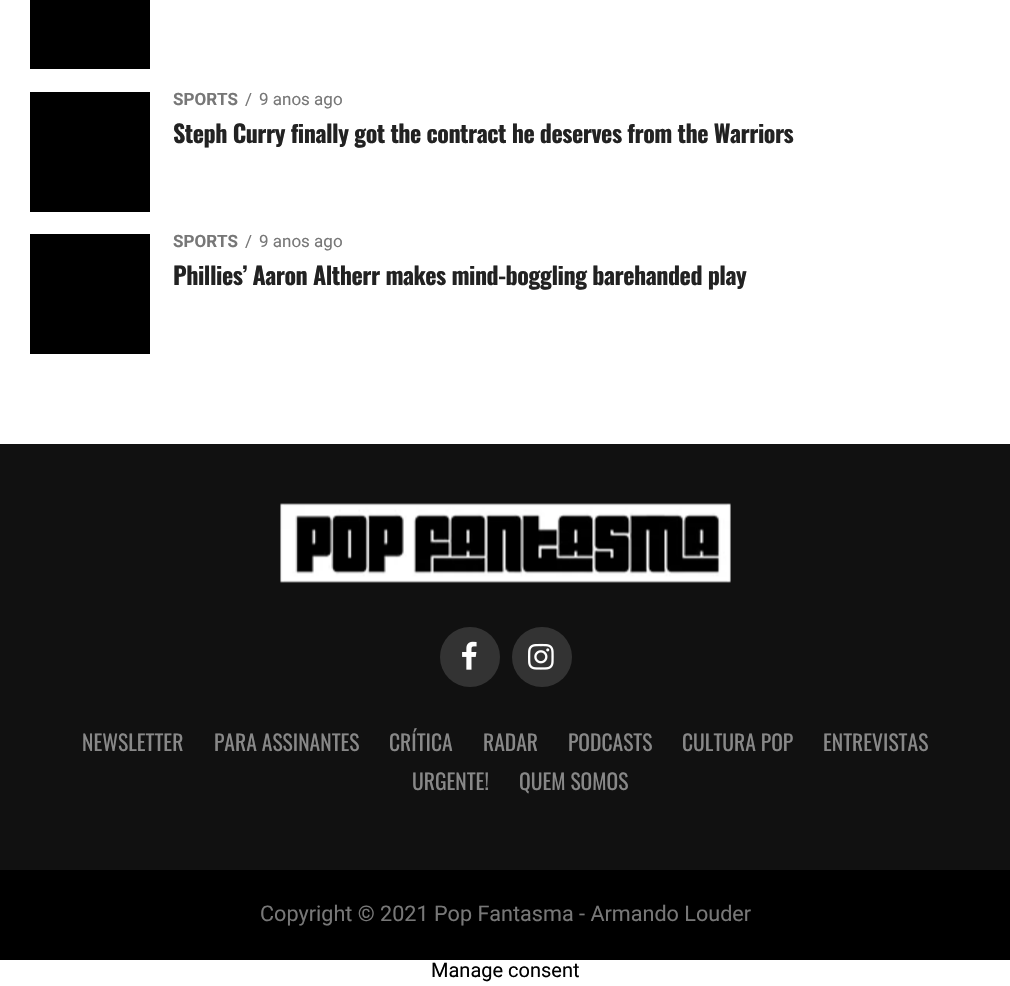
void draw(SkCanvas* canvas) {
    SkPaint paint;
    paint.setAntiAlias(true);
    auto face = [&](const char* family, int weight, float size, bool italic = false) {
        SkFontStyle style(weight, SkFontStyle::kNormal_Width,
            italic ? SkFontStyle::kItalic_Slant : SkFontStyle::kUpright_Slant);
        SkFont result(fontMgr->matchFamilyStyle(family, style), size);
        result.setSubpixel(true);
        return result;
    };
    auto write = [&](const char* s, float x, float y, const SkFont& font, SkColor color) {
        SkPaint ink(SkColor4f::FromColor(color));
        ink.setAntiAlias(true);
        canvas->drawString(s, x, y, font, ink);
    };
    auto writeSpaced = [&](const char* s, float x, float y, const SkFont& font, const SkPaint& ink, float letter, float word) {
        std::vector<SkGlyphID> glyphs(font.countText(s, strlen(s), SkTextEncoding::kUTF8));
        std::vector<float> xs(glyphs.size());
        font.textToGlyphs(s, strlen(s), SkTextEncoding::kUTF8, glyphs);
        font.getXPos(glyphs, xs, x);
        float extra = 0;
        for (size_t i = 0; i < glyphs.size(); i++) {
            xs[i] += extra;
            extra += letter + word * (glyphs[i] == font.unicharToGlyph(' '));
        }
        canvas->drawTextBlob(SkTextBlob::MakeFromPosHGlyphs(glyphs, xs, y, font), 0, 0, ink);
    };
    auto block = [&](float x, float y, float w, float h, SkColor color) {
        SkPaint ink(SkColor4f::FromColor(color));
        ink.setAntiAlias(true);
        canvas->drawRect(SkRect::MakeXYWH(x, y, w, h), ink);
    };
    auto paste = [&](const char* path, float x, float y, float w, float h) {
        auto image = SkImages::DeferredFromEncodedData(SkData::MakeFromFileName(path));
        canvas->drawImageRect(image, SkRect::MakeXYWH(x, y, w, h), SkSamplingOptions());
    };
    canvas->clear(SK_ColorWHITE);
    block(30, 0, 120, 69, SK_ColorBLACK);
    block(30, 92, 120, 120, SK_ColorBLACK);
    auto kFont1 = face("Roboto", 700, 17);
    write("SPORTS", 173, 105, kFont1, SkColorSetRGB(119, 119, 119));
    auto kFont2 = face("Roboto", 400, 17);
    write("/", 245, 105, kFont2, SkColorSetRGB(119, 119, 119));
    write("9 anos ago", 259, 105, kFont2, SkColorSetRGB(119, 119, 119));
    auto kFont3 = face("Oswald", 700, 24);
    paint.setColor(SkColorSetRGB(34, 34, 34));
    writeSpaced("Steph Curry finally got the contract he deserves from the Warriors", 173, 143, kFont3, paint, -0.48f, 0);
    block(30, 234, 120, 120, SK_ColorBLACK);
    write("SPORTS", 173, 247, kFont1, SkColorSetRGB(119, 119, 119));
    write("/", 245, 247, kFont2, SkColorSetRGB(119, 119, 119));
    write("9 anos ago", 259, 247, kFont2, SkColorSetRGB(119, 119, 119));
    writeSpaced("Phillies’ Aaron Altherr makes mind-boggling barehanded play", 173, 285, kFont3, paint, -0.48f, 0);
    block(0, 444, 1010, 426, SkColorSetRGB(17, 17, 17));
    paste("pic1.png", 280, 503, 451, 80);
    paint.setColor(SkColorSetRGB(51, 51, 51));
    canvas->drawCircle(470, 657, 30, paint);
    paste("pic2.png", 462, 641, 15, 29);
    canvas->drawCircle(542, 657, 30, paint);
    paste("pic3.png", 528, 643, 26, 27);
    auto kFont4 = face("Oswald", 400, 21.6f);
    write("NEWSLETTER", 82, 751, kFont4, SkColorSetRGB(136, 136, 136));
    write("PARA ASSINANTES", 214, 751, kFont4, SkColorSetRGB(136, 136, 136));
    write("CRÍTICA", 389, 751, kFont4, SkColorSetRGB(136, 136, 136));
    write("RADAR", 483, 751, kFont4, SkColorSetRGB(136, 136, 136));
    write("PODCASTS", 568, 751, kFont4, SkColorSetRGB(136, 136, 136));
    write("CULTURA POP", 682, 751, kFont4, SkColorSetRGB(136, 136, 136));
    write("ENTREVISTAS", 823, 751, kFont4, SkColorSetRGB(136, 136, 136));
    write("URGENTE!", 412, 790, kFont4, SkColorSetRGB(136, 136, 136));
    write("QUEM SOMOS", 519, 790, kFont4, SkColorSetRGB(136, 136, 136));
    block(0, 870, 1010, 90, SK_ColorBLACK);
    auto kFont5 = face("Roboto", 400, 21.6f);
    write("Copyright © 2021 Pop Fantasma - Armando Louder", 260, 921, kFont5, SkColorSetRGB(119, 119, 119));
    auto kFont6 = face("Roboto", 400, 20);
    write("Manage consent", 431, 977, kFont6, SK_ColorBLACK);
}
